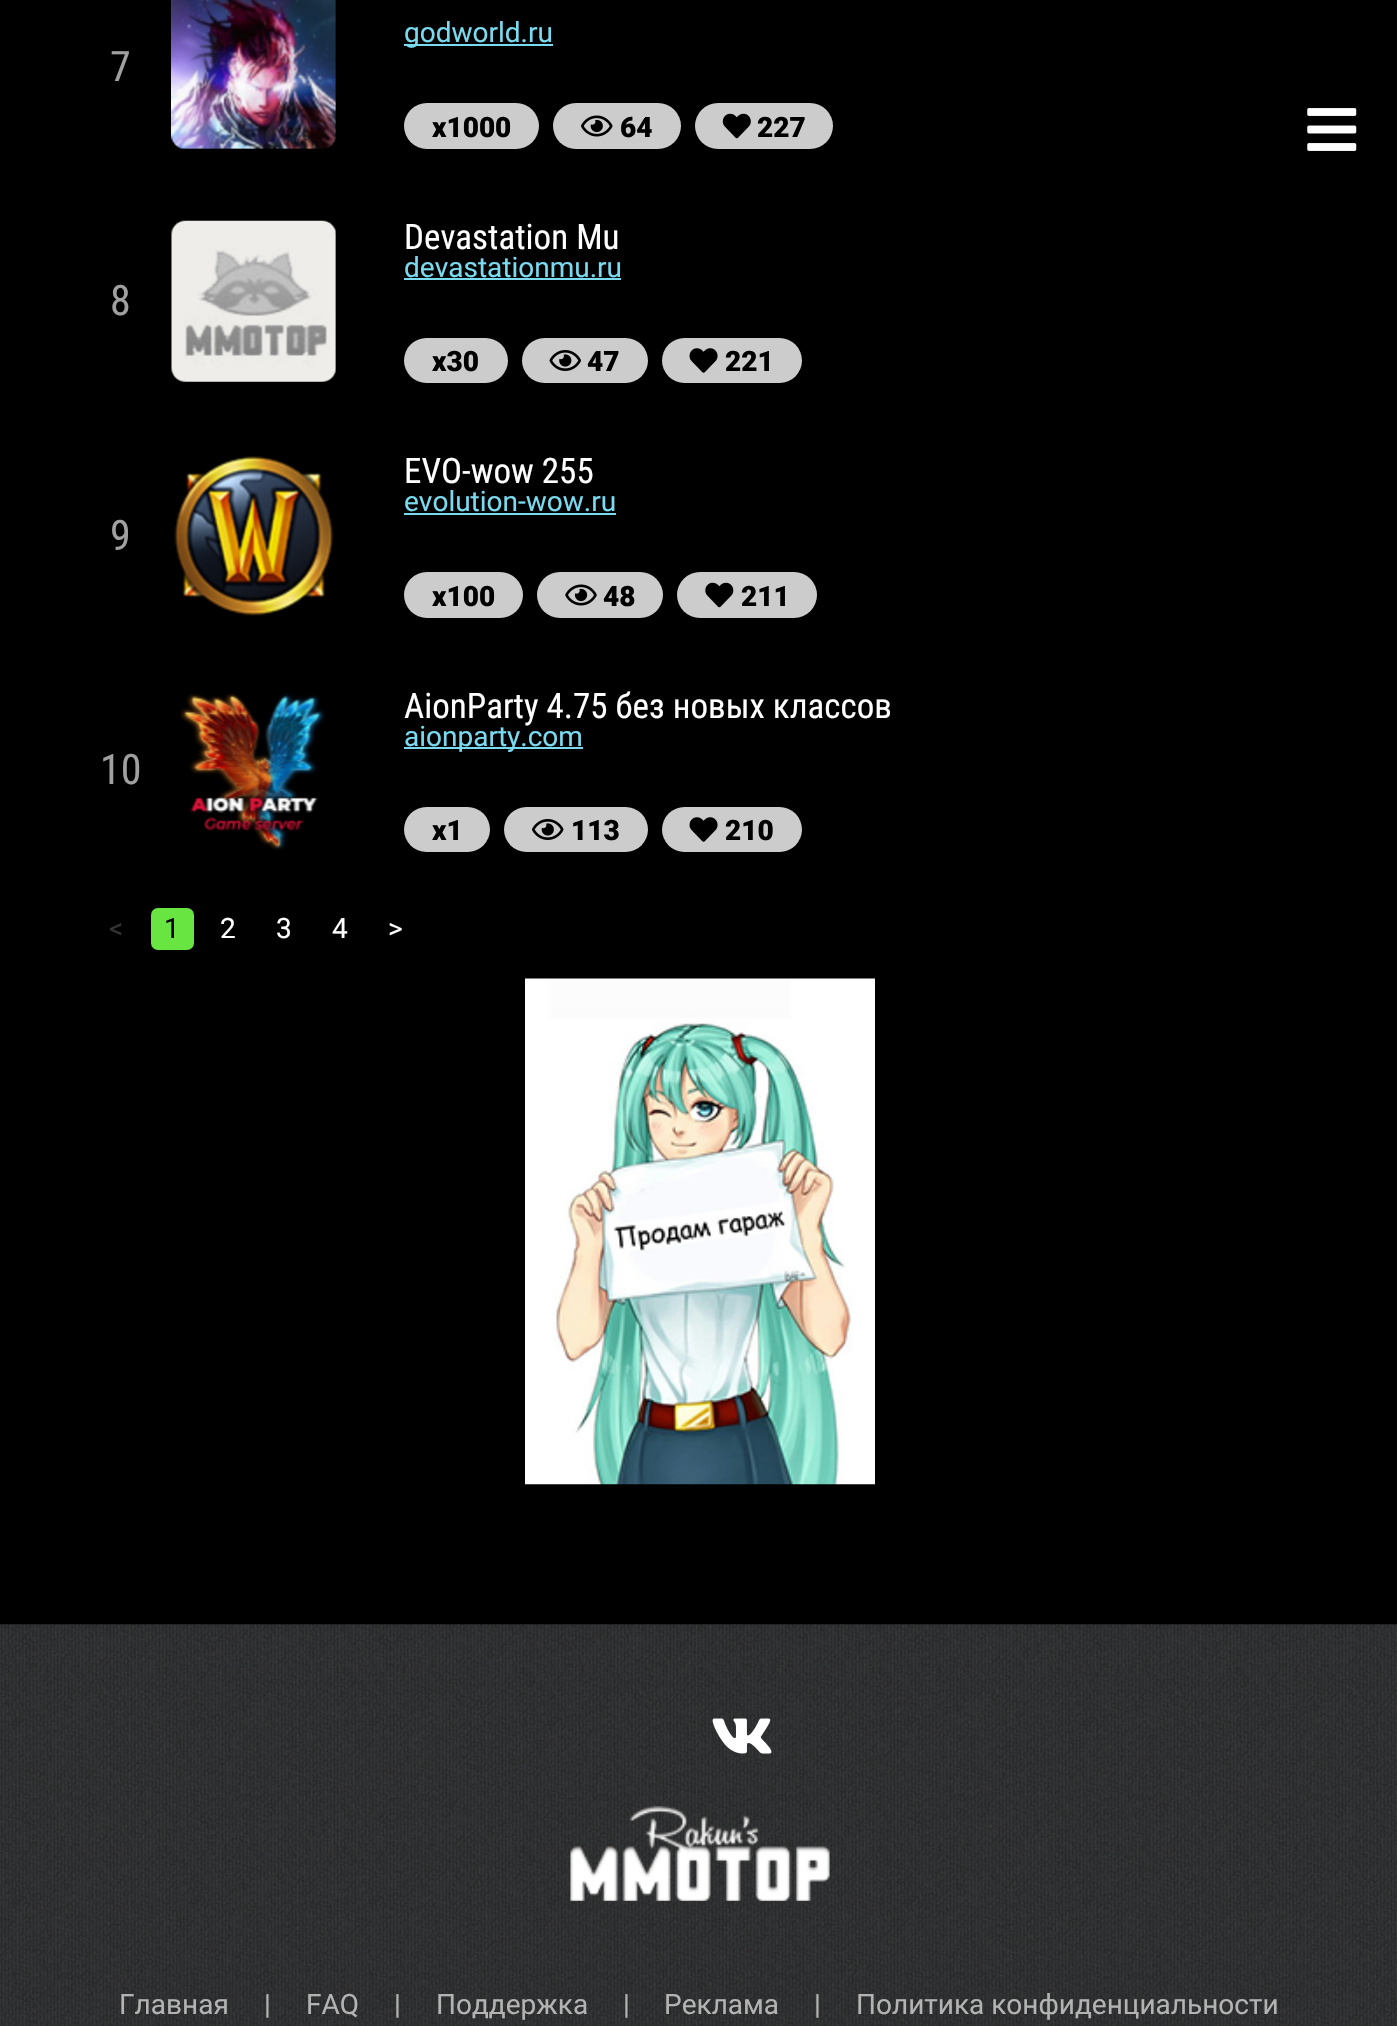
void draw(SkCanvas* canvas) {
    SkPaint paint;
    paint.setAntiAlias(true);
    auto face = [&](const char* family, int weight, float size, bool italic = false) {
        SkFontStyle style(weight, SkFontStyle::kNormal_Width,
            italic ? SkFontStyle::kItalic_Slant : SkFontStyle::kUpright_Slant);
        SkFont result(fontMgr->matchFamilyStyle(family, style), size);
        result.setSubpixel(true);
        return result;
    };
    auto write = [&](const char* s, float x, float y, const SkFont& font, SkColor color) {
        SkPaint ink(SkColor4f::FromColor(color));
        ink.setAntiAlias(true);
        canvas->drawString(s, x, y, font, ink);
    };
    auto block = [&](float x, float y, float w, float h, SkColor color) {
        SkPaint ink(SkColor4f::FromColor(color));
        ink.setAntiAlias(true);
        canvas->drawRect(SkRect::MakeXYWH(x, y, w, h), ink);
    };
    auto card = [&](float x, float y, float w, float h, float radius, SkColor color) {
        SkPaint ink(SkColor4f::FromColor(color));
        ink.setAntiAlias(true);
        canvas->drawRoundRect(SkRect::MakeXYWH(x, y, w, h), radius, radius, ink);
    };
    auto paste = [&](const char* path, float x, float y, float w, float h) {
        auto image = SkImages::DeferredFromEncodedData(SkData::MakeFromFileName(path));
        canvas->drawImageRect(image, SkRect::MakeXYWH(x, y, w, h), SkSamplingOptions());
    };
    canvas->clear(SK_ColorBLACK);
    auto kFont1 = face("Roboto Condensed", 400, 42);
    write("7", 110, 81, kFont1, SkColorSetRGB(160, 160, 160));
    paste("pic1.png", 171, 0, 165, 149);
    block(404, 44, 149, 2, SkColorSetRGB(122, 218, 239));
    auto kFont2 = face("Roboto", 400, 28);
    write("godworld.ru", 404, 42, kFont2, SkColorSetRGB(122, 218, 239));
    card(404, 103, 135, 46, 23, SkColorSetRGB(204, 204, 204));
    auto kFont3 = face("Roboto", 900, 28);
    write("х1000", 432, 137, kFont3, SK_ColorBLACK);
    card(553, 103, 128, 46, 23, SkColorSetRGB(204, 204, 204));
    paste("pic2.png", 581, 115, 32, 22);
    write("64", 620, 137, kFont3, SK_ColorBLACK);
    card(695, 103, 138, 46, 23, SkColorSetRGB(204, 204, 204));
    paste("pic3.png", 722, 113, 29, 26);
    write("227", 757, 137, kFont3, SK_ColorBLACK);
    write("8", 110, 315, kFont1, SkColorSetRGB(160, 160, 160));
    paste("pic4.png", 171, 220, 165, 162);
    auto kFont4 = face("Roboto Condensed", 400, 35);
    write("Devastation Mu", 404, 249, kFont4, SK_ColorWHITE);
    write("devastationmu.ru", 404, 277, kFont2, SkColorSetRGB(122, 218, 239));
    block(404, 278, 217, 2, SkColorSetRGB(122, 218, 239));
    card(404, 338, 104, 45, 22.5f, SkColorSetRGB(204, 204, 204));
    write("х30", 432, 371, kFont3, SK_ColorBLACK);
    card(522, 338, 126, 45, 22.5f, SkColorSetRGB(204, 204, 204));
    paste("pic5.png", 549, 350, 32, 21);
    write("47", 587, 371, kFont3, SK_ColorBLACK);
    card(662, 338, 140, 45, 22.5f, SkColorSetRGB(204, 204, 204));
    paste("pic6.png", 689, 348, 29, 25);
    write("221", 725, 371, kFont3, SK_ColorBLACK);
    write("9", 110, 550, kFont1, SkColorSetRGB(160, 160, 160));
    paste("pic7.png", 174, 456, 160, 160);
    write("EVO-wow 255", 404, 483, kFont4, SK_ColorWHITE);
    write("evolution-wow.ru", 404, 511, kFont2, SkColorSetRGB(122, 218, 239));
    block(404, 513, 212, 2, SkColorSetRGB(122, 218, 239));
    card(404, 572, 119, 46, 23, SkColorSetRGB(204, 204, 204));
    write("х100", 432, 606, kFont3, SK_ColorBLACK);
    card(537, 572, 126, 46, 23, SkColorSetRGB(204, 204, 204));
    paste("pic8.png", 565, 584, 32, 22);
    write("48", 603, 606, kFont3, SK_ColorBLACK);
    card(677, 572, 140, 46, 23, SkColorSetRGB(204, 204, 204));
    paste("pic9.png", 705, 582, 29, 26);
    write("211", 741, 606, kFont3, SK_ColorBLACK);
    write("10", 100, 784, kFont1, SkColorSetRGB(160, 160, 160));
    paste("pic10.png", 179, 693, 146, 157);
    write("AionParty 4.75 без новых классов", 404, 718, kFont4, SK_ColorWHITE);
    block(404, 747, 179, 2, SkColorSetRGB(122, 218, 239));
    write("aionparty.com", 404, 746, kFont2, SkColorSetRGB(122, 218, 239));
    card(404, 807, 86, 45, 22.5f, SkColorSetRGB(204, 204, 204));
    write("х1", 432, 840, kFont3, SK_ColorBLACK);
    card(504, 807, 144, 45, 22.5f, SkColorSetRGB(204, 204, 204));
    paste("pic11.png", 532, 819, 32, 21);
    write("113", 571, 840, kFont3, SK_ColorBLACK);
    card(662, 807, 140, 45, 22.5f, SkColorSetRGB(204, 204, 204));
    paste("pic6.png", 689, 817, 29, 25);
    write("210", 725, 840, kFont3, SK_ColorBLACK);
    write("<", 109, 938, kFont2, SkColorSetRGB(51, 51, 51));
    card(151, 908, 43, 42, 7, SkColorSetRGB(105, 229, 66));
    write("1", 164, 938, kFont2, SK_ColorBLACK);
    write("2", 220, 938, kFont2, SK_ColorWHITE);
    write("3", 276, 938, kFont2, SK_ColorWHITE);
    write("4", 332, 938, kFont2, SK_ColorWHITE);
    write(">", 388, 938, kFont2, SK_ColorWHITE);
    paste("pic12.png", 525, 978, 350, 507);
    paste("pic13.png", 1307, 108, 50, 43);
    paste("pic14.png", 0, 1624, 1397, 402);
    paste("pic15.png", 712, 1718, 60, 36);
    paste("pic16.png", 570, 1806, 260, 95);
    write("Главная", 119, 2014, kFont2, SkColorSetRGB(179, 179, 179));
    write("|", 264, 2014, kFont2, SkColorSetRGB(179, 179, 179));
    write("FAQ", 306, 2014, kFont2, SkColorSetRGB(179, 179, 179));
    write("|", 394, 2014, kFont2, SkColorSetRGB(179, 179, 179));
    write("Поддержка", 436, 2014, kFont2, SkColorSetRGB(179, 179, 179));
    write("|", 623, 2014, kFont2, SkColorSetRGB(179, 179, 179));
    write("Реклама", 664, 2014, kFont2, SkColorSetRGB(179, 179, 179));
    write("|", 814, 2014, kFont2, SkColorSetRGB(179, 179, 179));
    write("Политика конфиденциальности", 856, 2014, kFont2, SkColorSetRGB(179, 179, 179));
}
